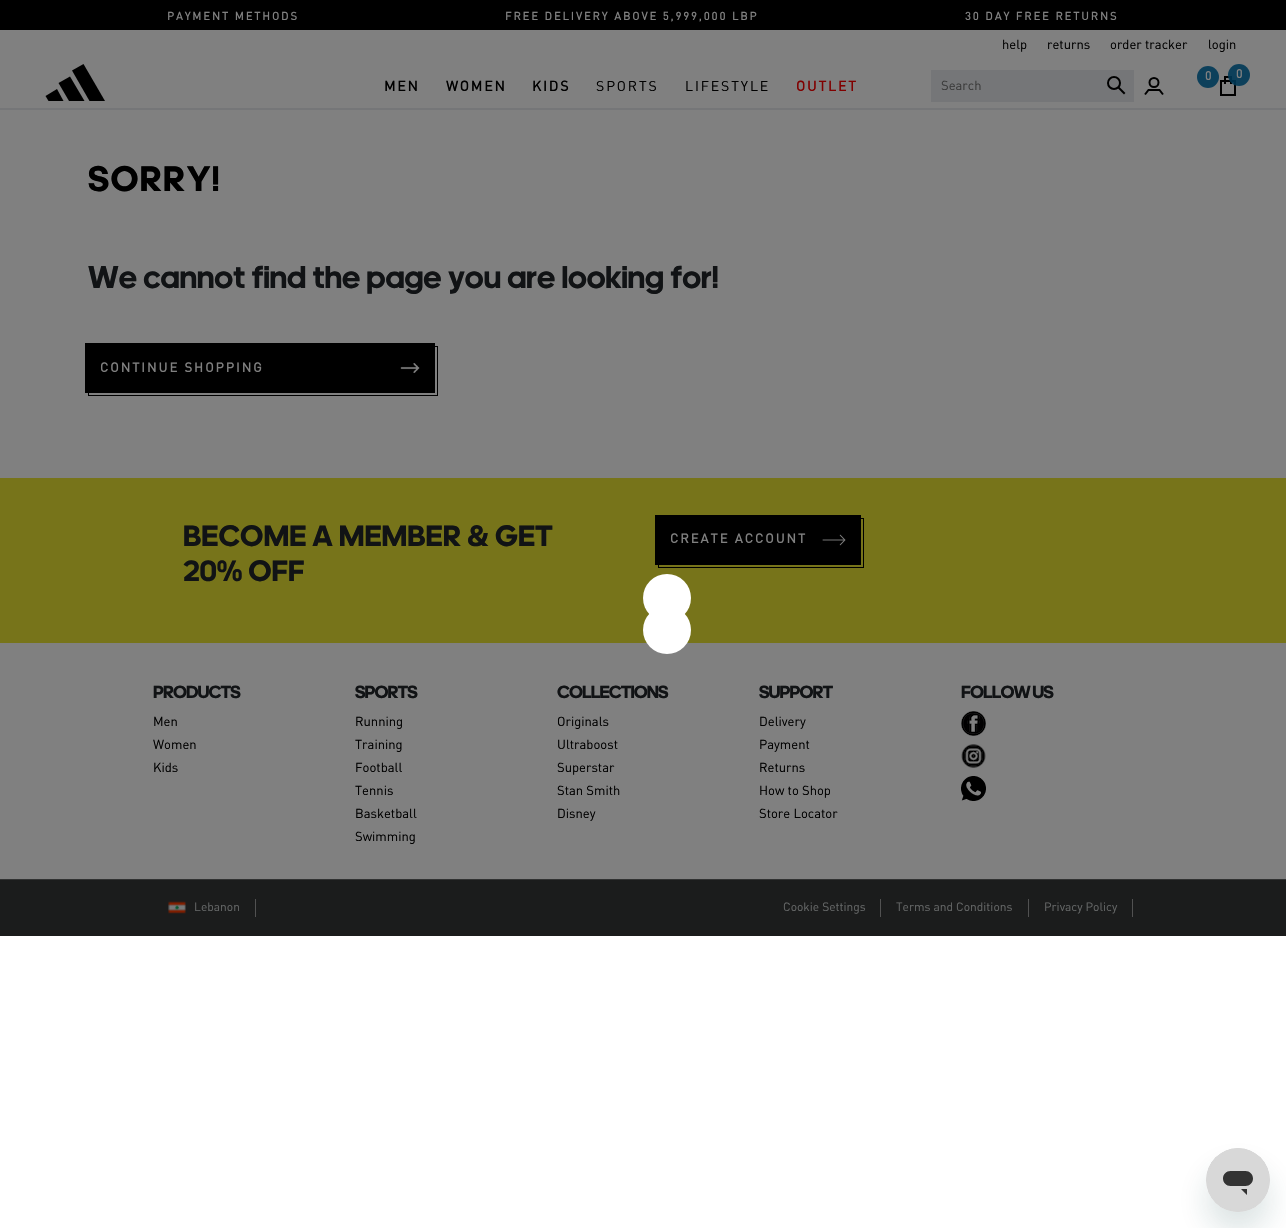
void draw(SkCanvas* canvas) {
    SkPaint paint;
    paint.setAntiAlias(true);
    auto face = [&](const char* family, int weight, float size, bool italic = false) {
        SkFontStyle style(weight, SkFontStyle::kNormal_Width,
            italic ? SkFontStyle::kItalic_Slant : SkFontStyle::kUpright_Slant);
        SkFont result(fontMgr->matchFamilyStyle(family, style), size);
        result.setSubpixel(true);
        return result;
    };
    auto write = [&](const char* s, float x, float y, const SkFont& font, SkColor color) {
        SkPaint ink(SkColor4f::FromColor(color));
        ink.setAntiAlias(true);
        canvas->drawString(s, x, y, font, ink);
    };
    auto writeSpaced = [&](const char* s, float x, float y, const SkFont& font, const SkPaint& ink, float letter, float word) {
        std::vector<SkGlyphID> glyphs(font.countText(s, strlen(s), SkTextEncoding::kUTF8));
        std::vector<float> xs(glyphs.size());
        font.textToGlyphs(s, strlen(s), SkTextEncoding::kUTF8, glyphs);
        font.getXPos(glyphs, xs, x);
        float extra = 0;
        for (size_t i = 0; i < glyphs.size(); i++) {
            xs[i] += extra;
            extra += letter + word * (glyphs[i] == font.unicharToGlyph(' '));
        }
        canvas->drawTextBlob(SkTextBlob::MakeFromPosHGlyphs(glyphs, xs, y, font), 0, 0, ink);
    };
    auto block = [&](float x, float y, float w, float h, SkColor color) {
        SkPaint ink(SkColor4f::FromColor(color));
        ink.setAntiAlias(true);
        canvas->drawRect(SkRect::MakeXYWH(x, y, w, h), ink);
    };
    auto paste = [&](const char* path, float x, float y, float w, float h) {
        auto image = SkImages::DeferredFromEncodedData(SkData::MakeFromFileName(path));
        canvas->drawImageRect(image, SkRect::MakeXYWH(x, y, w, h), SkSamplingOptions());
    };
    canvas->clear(SK_ColorWHITE);
    block(0, 30, 1286, 849, SkColorSetRGB(128, 128, 128));
    block(0, 0, 1286, 30, SK_ColorBLACK);
    auto kFont1 = face("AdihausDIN", 700, 11);
    paint.setColor(SkColorSetRGB(128, 128, 128));
    writeSpaced("PAYMENT METHODS", 167, 20, kFont1, paint, 2, 0);
    writeSpaced("FREE DELIVERY ABOVE 5,999,000 LBP", 505, 20, kFont1, paint, 2, 0);
    writeSpaced("30 DAY FREE RETURNS", 965, 20, kFont1, paint, 2, 0);
    auto kFont2 = face("AdihausDIN", 400, 13);
    write("help", 1002, 49, kFont2, SK_ColorBLACK);
    write("returns", 1047, 49, kFont2, SK_ColorBLACK);
    write("order tracker", 1110, 49, kFont2, SK_ColorBLACK);
    write("login", 1208, 49, kFont2, SK_ColorBLACK);
    block(0, 108, 1286, 2, SkColorSetRGB(117, 118, 120));
    paint.setColor(SK_ColorBLACK);
    canvas->drawPath(SkPathBuilder().moveTo(48.5f, 101).lineTo(45.5f, 96).lineTo(57, 89).lineTo(63.5f, 101).close().detach(), paint);
    canvas->drawPath(SkPathBuilder().moveTo(69, 101).lineTo(58.5f, 83).lineTo(70, 76.5f).lineTo(84.5f, 101).close().detach(), paint);
    canvas->drawPath(SkPathBuilder().moveTo(89.5f, 101).lineTo(72, 70.5f).lineTo(83.5f, 64).lineTo(105, 101).close().detach(), paint);
    auto kFont3 = face("AdihausDIN", 700, 14);
    writeSpaced("MEN", 384, 91, kFont3, paint, 1.9f, 0);
    writeSpaced("WOMEN", 446, 91, kFont3, paint, 1.9f, 0);
    writeSpaced("KIDS", 532, 91, kFont3, paint, 1.9f, 0);
    auto kFont4 = face("AdihausDIN", 400, 14);
    writeSpaced("SPORTS", 596, 91, kFont4, paint, 1.9f, 0);
    writeSpaced("LIFESTYLE", 685, 91, kFont4, paint, 1.9f, 0);
    paint.setColor(SkColorSetRGB(128, 0, 0));
    writeSpaced("OUTLET", 796, 91, kFont3, paint, 1.9f, 0);
    paint.setColor(SkColorSetRGB(13, 64, 91));
    canvas->drawCircle(1208, 77, 11, paint);
    auto kFont5 = face("AdihausDIN", 700, 12);
    write("0", 1205, 80, kFont5, SkColorSetRGB(128, 128, 128));
    paint.setStyle(SkPaint::kStroke_Style);
    paint.setStrokeWidth(2);
    paint.setColor(SK_ColorBLACK);
    canvas->drawCircle(1154, 82.5f, 4.5f, paint);
    canvas->drawPath(SkPathBuilder().moveTo(1163, 94.5f).lineTo(1159.5f, 90).lineTo(1148.5f, 90).lineTo(1145, 94.5f).detach(), paint);
    canvas->drawPath(SkPathBuilder().moveTo(1221, 81).lineTo(1235, 81).lineTo(1235, 95).lineTo(1221, 95).close().moveTo(1231, 84).lineTo(1231, 77).lineTo(1225, 77).lineTo(1225, 84).detach(), paint);
    paint.setStyle(SkPaint::kFill_Style);
    paint.setColor(SkColorSetARGB(230, 0, 57, 87));
    canvas->drawCircle(1239, 75, 11, paint);
    write("0", 1236, 78, kFont5, SkColorSetRGB(128, 128, 128));
    block(931, 70, 203, 32, SkColorSetRGB(117, 118, 120));
    write("Search", 941, 90, kFont2, SkColorSetRGB(59, 59, 59));
    paint.setStyle(SkPaint::kStroke_Style);
    paint.setColor(SK_ColorBLACK);
    canvas->drawCircle(1114, 83, 6, paint);
    paint.setStrokeCap(SkPaint::kSquare_Cap);
    canvas->drawPath(SkPathBuilder().moveTo(1119, 88).lineTo(1124, 93).detach(), paint);
    auto kFont6 = face("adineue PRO", 700, 36);
    paint.setStyle(SkPaint::kFill_Style);
    writeSpaced("SORRY!", 88, 191, kFont6, paint, 1.25f, 0);
    auto kFont7 = face("adineue PRO", 700, 32);
    write("We cannot find the page you are looking for!", 88, 288, kFont7, SkColorSetRGB(17, 19, 21));
    block(85, 343, 350, 50, SK_ColorBLACK);
    auto kFont8 = face("AdihausDIN", 700, 13);
    paint.setColor(SkColorSetRGB(128, 128, 128));
    writeSpaced("CONTINUE SHOPPING", 100, 372, kFont8, paint, 2, 0);
    paste("pic1.png", 400, 363, 20, 10);
    block(435, 346, 3, 1, SK_ColorBLACK);
    block(88, 395, 350, 1, SK_ColorBLACK);
    block(437, 346, 1, 50, SK_ColorBLACK);
    block(88, 393, 1, 3, SK_ColorBLACK);
    block(0, 478, 1286, 165, SkColorSetRGB(119, 116, 26));
    auto kFont9 = face("adineue PRO", 700, 30);
    write("BECOME A MEMBER & GET", 183, 546, kFont9, SkColorSetRGB(17, 19, 21));
    write("20% OFF", 183, 581, kFont9, SkColorSetRGB(17, 19, 21));
    block(655, 515, 206, 50, SK_ColorBLACK);
    writeSpaced("CREATE ACCOUNT", 670, 543, kFont8, paint, 2, 0);
    paste("pic2.png", 822, 534, 24, 12);
    block(861, 518, 3, 1, SK_ColorBLACK);
    block(658, 567, 206, 1, SK_ColorBLACK);
    block(863, 518, 1, 50, SK_ColorBLACK);
    block(658, 565, 1, 3, SK_ColorBLACK);
    auto kFont10 = face("adineue PRO", 700, 18);
    paint.setColor(SkColorSetRGB(17, 19, 21));
    writeSpaced("PRODUCTS", 153, 698, kFont10, paint, -1, 0);
    write("Men", 153, 726, kFont2, SK_ColorBLACK);
    write("Women", 153, 749, kFont2, SK_ColorBLACK);
    write("Kids", 153, 772, kFont2, SK_ColorBLACK);
    writeSpaced("SPORTS", 355, 698, kFont10, paint, -1, 0);
    write("Running", 355, 726, kFont2, SK_ColorBLACK);
    write("Training", 355, 749, kFont2, SK_ColorBLACK);
    write("Football", 355, 772, kFont2, SK_ColorBLACK);
    write("Tennis", 355, 795, kFont2, SK_ColorBLACK);
    write("Basketball", 355, 818, kFont2, SK_ColorBLACK);
    write("Swimming", 355, 841, kFont2, SK_ColorBLACK);
    writeSpaced("COLLECTIONS", 557, 698, kFont10, paint, -1, 0);
    write("Originals", 557, 726, kFont2, SK_ColorBLACK);
    write("Ultraboost", 557, 749, kFont2, SK_ColorBLACK);
    write("Superstar", 557, 772, kFont2, SK_ColorBLACK);
    write("Stan Smith", 557, 795, kFont2, SK_ColorBLACK);
    write("Disney", 557, 818, kFont2, SK_ColorBLACK);
    writeSpaced("SUPPORT", 759, 698, kFont10, paint, -1, 0);
    write("Delivery", 759, 726, kFont2, SK_ColorBLACK);
    write("Payment", 759, 749, kFont2, SK_ColorBLACK);
    write("Returns", 759, 772, kFont2, SK_ColorBLACK);
    write("How to Shop", 759, 795, kFont2, SK_ColorBLACK);
    write("Store Locator", 759, 818, kFont2, SK_ColorBLACK);
    writeSpaced("FOLLOW US", 961, 698, kFont10, paint, -1, 0);
    paste("pic3.png", 961, 711, 25, 25);
    paste("pic4.png", 961, 744, 25, 24);
    paste("pic5.png", 961, 776, 25, 25);
    block(0, 880, 1286, 56, SkColorSetRGB(27, 28, 28));
    block(0, 879, 1286, 1, SkColorSetRGB(49, 50, 50));
    block(255, 899, 1, 18, SkColorSetRGB(81, 81, 81));
    paste("pic6.png", 168, 901, 18, 13);
    auto kFont11 = face("AdihausDIN", 400, 12);
    write("Lebanon", 194, 911, kFont11, SkColorSetRGB(100, 102, 102));
    block(880, 899, 1, 18, SkColorSetRGB(81, 81, 81));
    write("Cookie Settings", 783, 911, kFont11, SkColorSetRGB(100, 102, 102));
    block(1028, 899, 1, 18, SkColorSetRGB(81, 81, 81));
    write("Terms and Conditions", 896, 911, kFont11, SkColorSetRGB(100, 102, 102));
    block(1132, 899, 1, 18, SkColorSetRGB(81, 81, 81));
    write("Privacy Policy", 1044, 911, kFont11, SkColorSetRGB(100, 102, 102));
    paint.setColor(SK_ColorWHITE);
    canvas->drawCircle(667, 598, 24, paint);
    canvas->drawCircle(667, 630, 24, paint);
    paint.setColor(SkColorSetARGB(38, 23, 73, 77));
    paint.setMaskFilter(SkMaskFilter::MakeBlur(kNormal_SkBlurStyle, 15));
    canvas->drawRoundRect(SkRect::MakeXYWH(1206, 1168, 64, 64), 32, 32, paint);
    paint.setMaskFilter(nullptr);
    paste("pic7.png", 1206, 1148, 64, 64);
}
